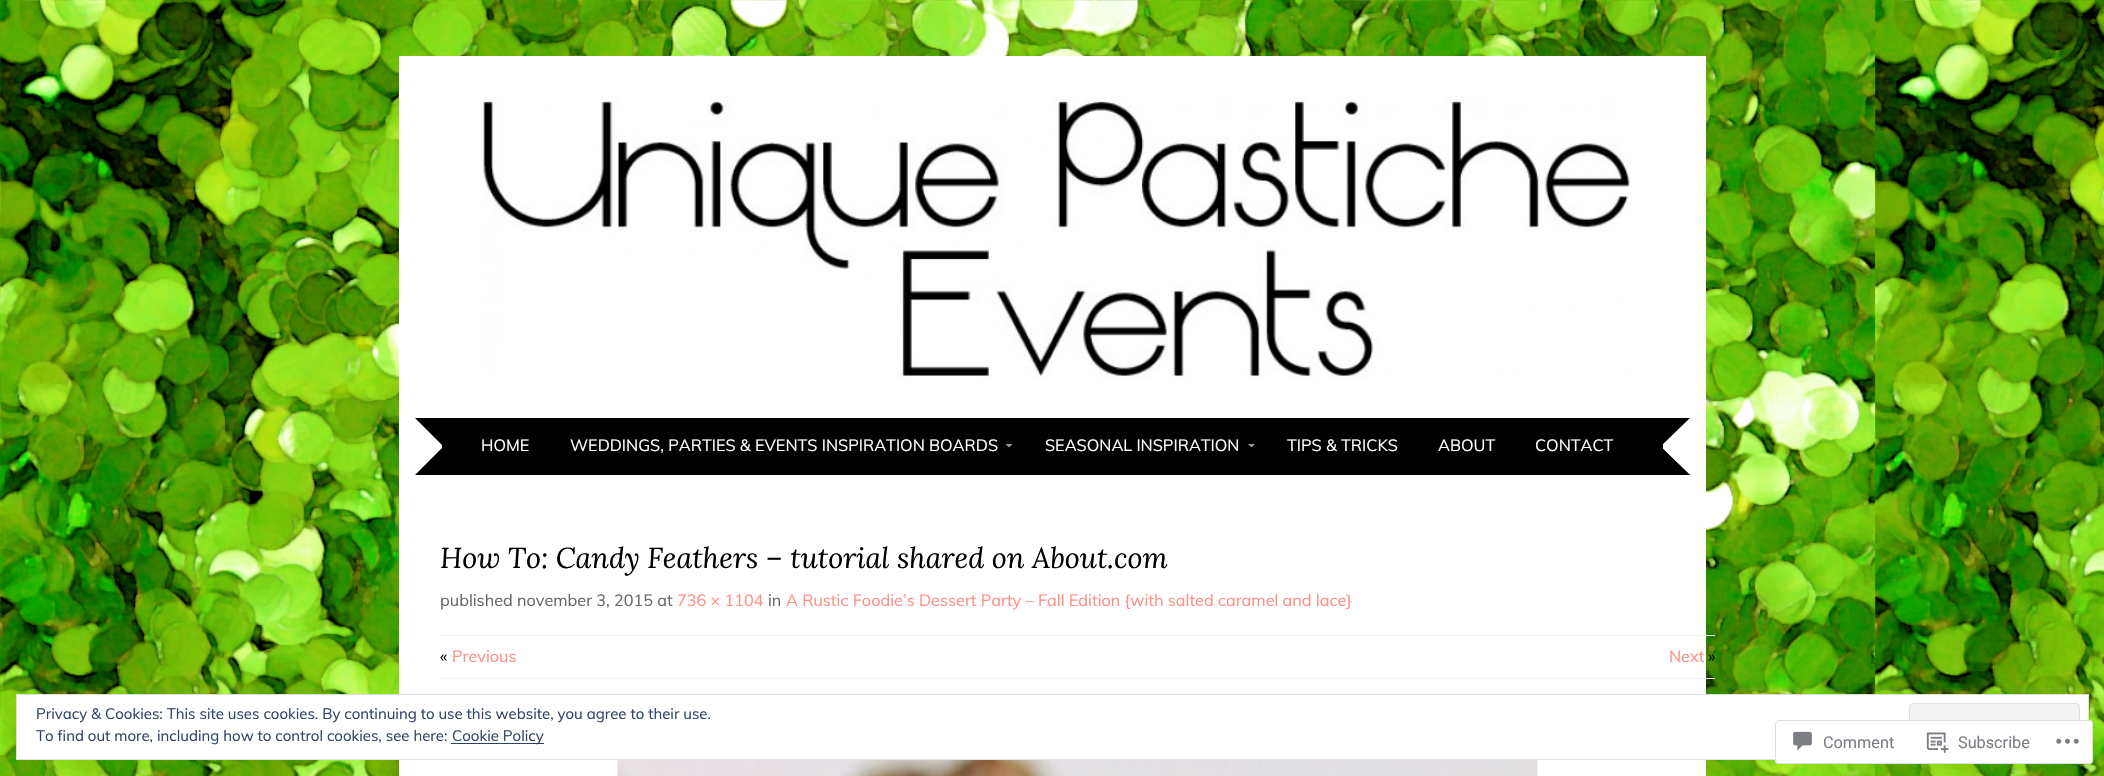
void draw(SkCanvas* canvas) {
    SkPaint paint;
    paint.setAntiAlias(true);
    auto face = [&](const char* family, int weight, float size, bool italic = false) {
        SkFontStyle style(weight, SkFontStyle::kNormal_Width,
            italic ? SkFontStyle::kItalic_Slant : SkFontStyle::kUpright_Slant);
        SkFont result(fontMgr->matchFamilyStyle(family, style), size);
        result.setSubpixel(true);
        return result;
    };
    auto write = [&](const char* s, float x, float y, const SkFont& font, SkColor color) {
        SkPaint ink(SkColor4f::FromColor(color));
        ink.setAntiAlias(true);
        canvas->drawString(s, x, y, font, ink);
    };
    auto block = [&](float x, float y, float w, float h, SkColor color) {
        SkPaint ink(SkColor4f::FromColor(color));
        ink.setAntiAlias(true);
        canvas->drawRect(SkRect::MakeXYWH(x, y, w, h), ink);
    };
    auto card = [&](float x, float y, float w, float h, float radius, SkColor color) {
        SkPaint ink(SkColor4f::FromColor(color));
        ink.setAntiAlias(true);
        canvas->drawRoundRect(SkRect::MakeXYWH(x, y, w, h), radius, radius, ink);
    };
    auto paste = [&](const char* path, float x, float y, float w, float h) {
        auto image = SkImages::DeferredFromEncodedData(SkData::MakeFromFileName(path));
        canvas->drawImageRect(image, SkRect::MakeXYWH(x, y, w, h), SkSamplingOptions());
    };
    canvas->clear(SK_ColorWHITE);
    paste("pic1.png", 0, 0, 2104, 776);
    block(399, 56, 1307, 720, SK_ColorWHITE);
    paste("pic2.png", 483, 96, 1148, 283);
    block(415, 418, 1275, 57, SK_ColorBLACK);
    paint.setColor(SK_ColorWHITE);
    canvas->drawPath(SkPathBuilder().moveTo(415, 475).lineTo(415, 418).lineTo(442, 445).lineTo(442, 448).close().detach(), paint);
    auto kFont1 = face("Muli", 400, 16.25f);
    write("HOME", 481, 451, kFont1, SK_ColorWHITE);
    write("WEDDINGS, PARTIES & EVENTS INSPIRATION BOARDS", 570, 451, kFont1, SK_ColorWHITE);
    paint.setColor(SkColorSetRGB(153, 153, 153));
    canvas->drawPath(SkPathBuilder().moveTo(1005.5f, 444).lineTo(1012.5f, 444).lineTo(1009, 447.5f).close().detach(), paint);
    write("SEASONAL INSPIRATION", 1045, 451, kFont1, SK_ColorWHITE);
    canvas->drawPath(SkPathBuilder().moveTo(1248, 444).lineTo(1255, 444).lineTo(1251.5f, 447.5f).close().detach(), paint);
    write("TIPS & TRICKS", 1287, 451, kFont1, SK_ColorWHITE);
    write("ABOUT", 1438, 451, kFont1, SK_ColorWHITE);
    write("CONTACT", 1535, 451, kFont1, SK_ColorWHITE);
    paint.setColor(SK_ColorWHITE);
    canvas->drawPath(SkPathBuilder().moveTo(1690, 418).lineTo(1690, 475).lineTo(1662, 448).lineTo(1662, 445).close().detach(), paint);
    paint.setColor(SK_ColorBLACK);
    canvas->drawPath(SkPathBuilder().moveTo(1690, 475).lineTo(1632, 475).lineTo(1662, 448).close().detach(), paint);
    block(1662, 444, 1, 5, SK_ColorBLACK);
    auto kFont2 = face("Lora", 400, 28.75f, true);
    write("How To: Candy Feathers – tutorial shared on About.com", 440, 568, kFont2, SK_ColorBLACK);
    write("published november 3, 2015 at", 440, 606, kFont1, SkColorSetRGB(102, 102, 102));
    write("736 × 1104", 677, 606, kFont1, SkColorSetRGB(255, 143, 133));
    write("in", 768, 606, kFont1, SkColorSetRGB(102, 102, 102));
    write("A Rustic Foodie’s Dessert Party – Fall Edition {with salted caramel and lace}", 786, 606, kFont1, SkColorSetRGB(255, 143, 133));
    block(440, 635, 1275, 1, SkColorSetRGB(238, 238, 238));
    block(440, 678, 1275, 1, SkColorSetRGB(238, 238, 238));
    write("«", 440, 662, kFont1, SK_ColorBLACK);
    write("Previous", 452, 662, kFont1, SkColorSetRGB(255, 143, 133));
    write("Next", 1669, 662, kFont1, SkColorSetRGB(255, 143, 133));
    write("»", 1708, 662, kFont1, SK_ColorBLACK);
    paste("pic3.png", 617, 760, 921, 16);
    paint.setColor(SK_ColorWHITE);
    canvas->drawRect(SkRect::MakeXYWH(16.5f, 694.5f, 2072, 65), paint);
    paint.setStyle(SkPaint::kStroke_Style);
    paint.setStrokeWidth(1);
    paint.setColor(SkColorSetRGB(222, 222, 222));
    canvas->drawRect(SkRect::MakeXYWH(16.5f, 694.5f, 2072, 65), paint);
    auto kFont3 = face("Muli", 400, 15);
    write("Privacy & Cookies: This site uses cookies. By continuing to use this website, you agree to their use.", 36, 719, kFont3, SkColorSetRGB(46, 68, 103));
    paint.setStyle(SkPaint::kFill_Style);
    paint.setColor(SkColorSetRGB(243, 243, 243));
    canvas->drawRoundRect(SkRect::MakeXYWH(1909.5f, 703.5f, 170, 47), 3.5f, 3.5f, paint);
    paint.setStyle(SkPaint::kStroke_Style);
    paint.setColor(SkColorSetRGB(222, 222, 222));
    canvas->drawRoundRect(SkRect::MakeXYWH(1909.5f, 703.5f, 170, 47), 3.5f, 3.5f, paint);
    write("To find out more, including how to control cookies, see here:", 36, 741, kFont3, SkColorSetRGB(46, 68, 103));
    block(451, 743, 93, 1, SkColorSetRGB(46, 68, 103));
    write("Cookie Policy", 452, 741, kFont3, SkColorSetRGB(46, 68, 103));
    card(1775, 720, 318, 44, 4, SkColorSetARGB(250, 255, 255, 255));
    paint.setColor(SkColorSetARGB(250, 220, 220, 222));
    canvas->drawRoundRect(SkRect::MakeXYWH(1775.5f, 720.5f, 317, 43), 3.5f, 3.5f, paint);
    paste("pic4.png", 1793, 731, 19, 20);
    auto kFont4 = face("Roboto", 400, 16.25f);
    write("Comment", 1823, 748, kFont4, SkColorSetRGB(123, 127, 133));
    paste("pic5.png", 1926, 732, 23, 21);
    write("Subscribe", 1958, 748, kFont4, SkColorSetRGB(123, 127, 133));
    paste("pic6.png", 2056, 738, 23, 6);
}
